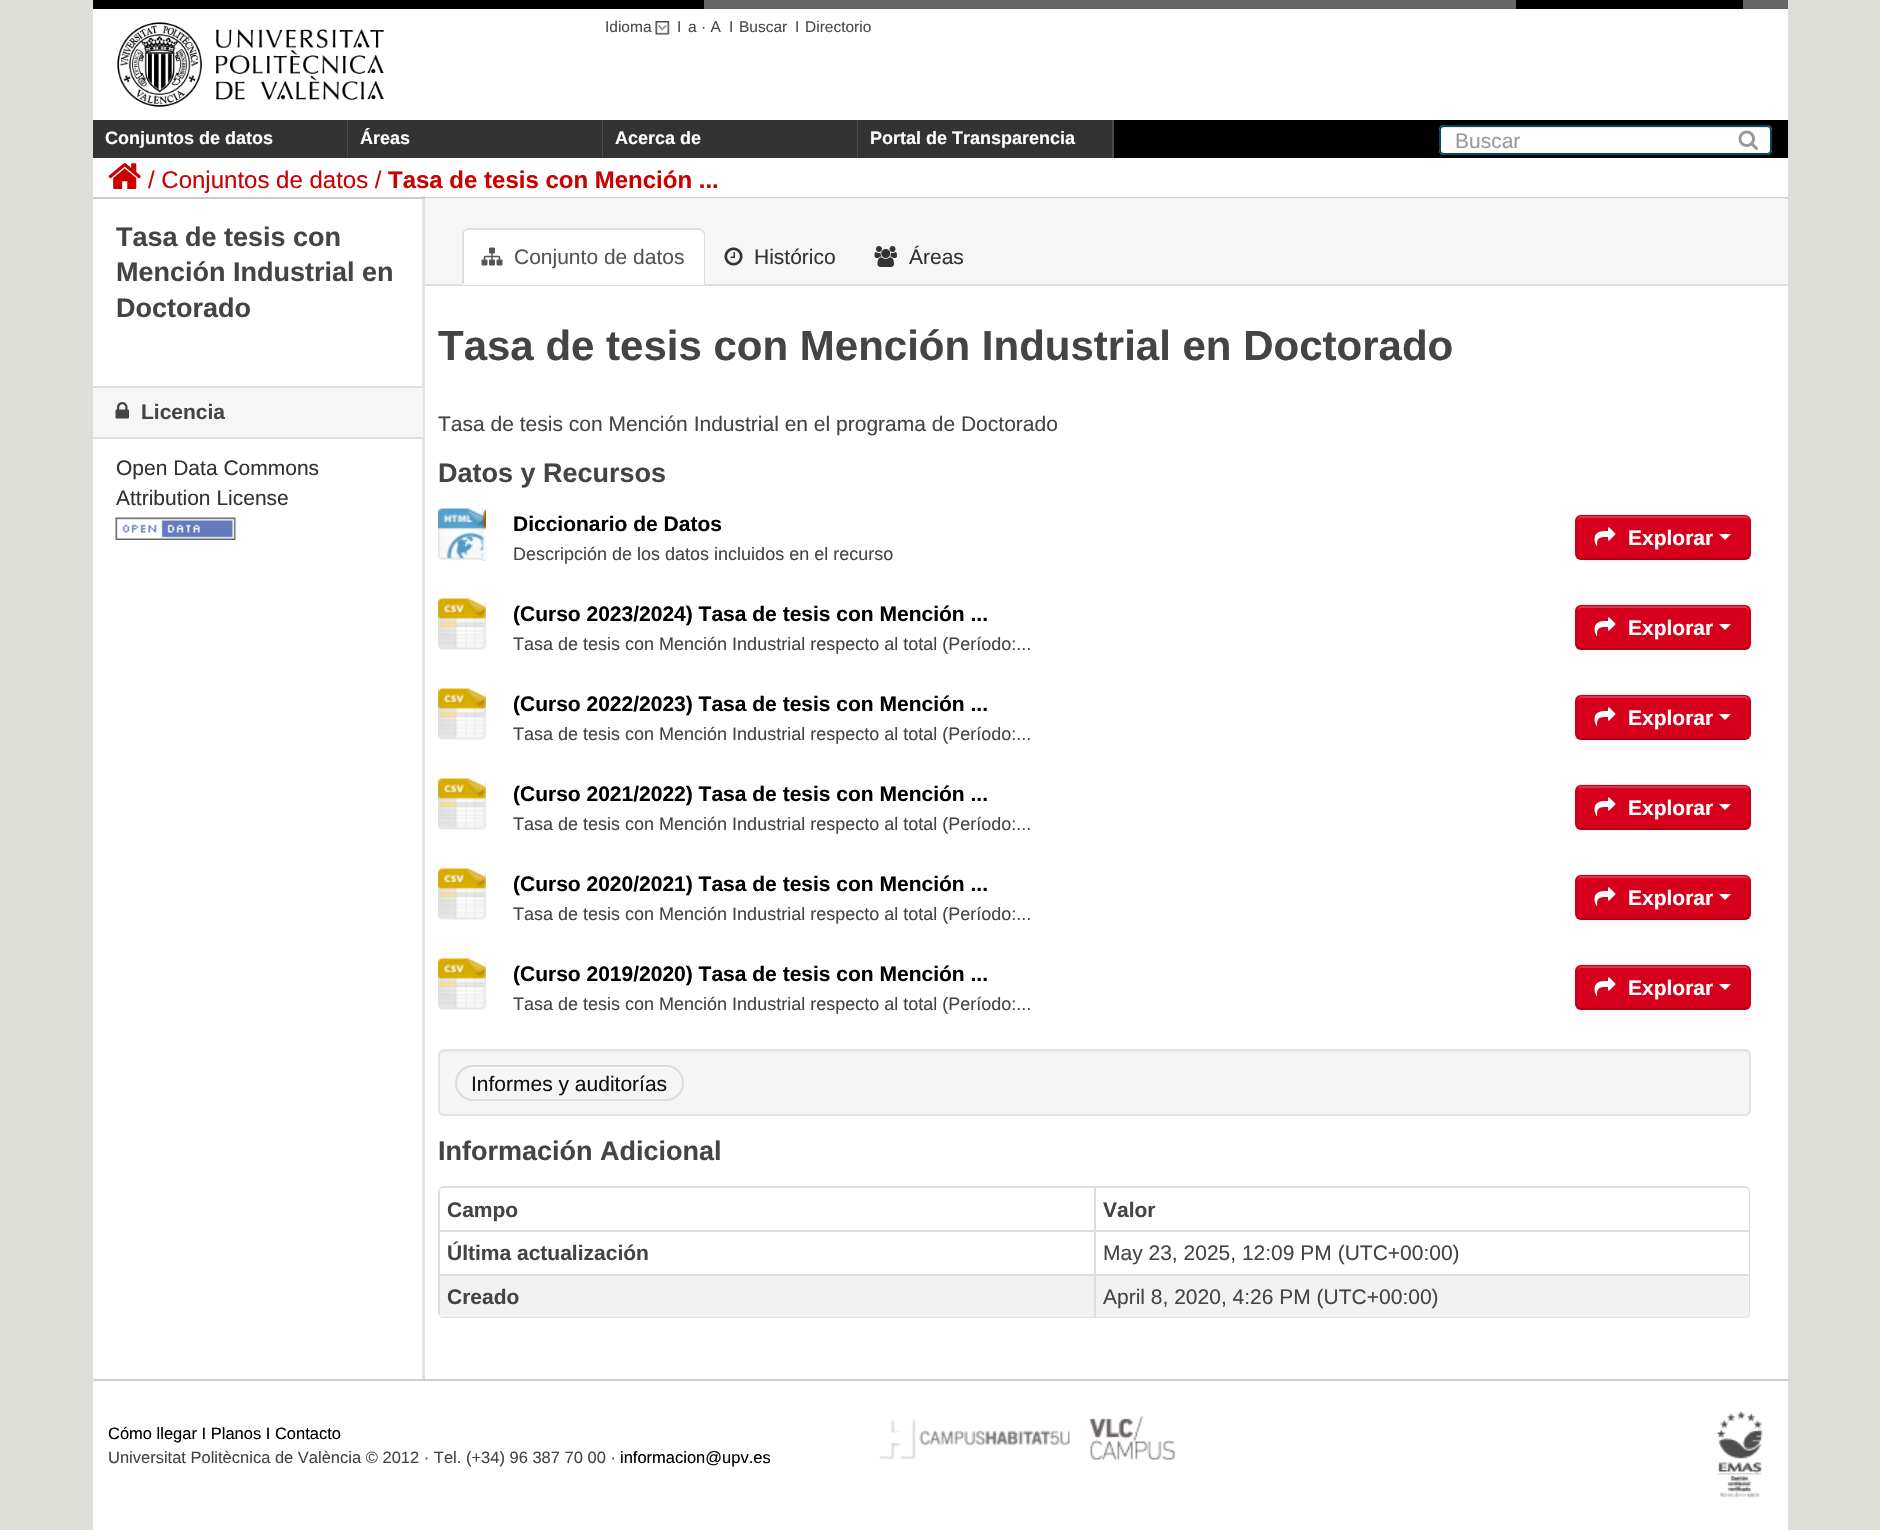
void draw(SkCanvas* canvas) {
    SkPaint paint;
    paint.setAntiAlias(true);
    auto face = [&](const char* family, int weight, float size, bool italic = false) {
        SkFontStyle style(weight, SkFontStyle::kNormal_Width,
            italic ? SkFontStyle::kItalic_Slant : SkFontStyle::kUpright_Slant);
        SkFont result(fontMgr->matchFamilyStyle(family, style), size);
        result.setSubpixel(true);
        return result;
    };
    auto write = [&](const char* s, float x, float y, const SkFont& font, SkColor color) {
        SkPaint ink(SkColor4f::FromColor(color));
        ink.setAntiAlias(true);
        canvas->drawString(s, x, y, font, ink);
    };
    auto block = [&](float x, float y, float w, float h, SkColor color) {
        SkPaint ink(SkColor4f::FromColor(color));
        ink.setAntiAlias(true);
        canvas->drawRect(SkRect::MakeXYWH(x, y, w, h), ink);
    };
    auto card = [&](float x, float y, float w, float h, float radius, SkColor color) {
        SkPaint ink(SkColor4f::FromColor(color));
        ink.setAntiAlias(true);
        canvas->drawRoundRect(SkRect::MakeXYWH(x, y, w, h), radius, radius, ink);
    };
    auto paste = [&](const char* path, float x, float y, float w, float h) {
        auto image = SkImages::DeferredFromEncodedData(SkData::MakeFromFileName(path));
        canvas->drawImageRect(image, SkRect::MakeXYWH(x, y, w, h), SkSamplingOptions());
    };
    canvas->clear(SkColorSetRGB(222, 222, 217));
    block(704, 0, 1084, 9, SkColorSetRGB(102, 102, 102));
    block(93, 0, 611, 9, SK_ColorBLACK);
    block(1516, 0, 227, 9, SK_ColorBLACK);
    block(93, 9, 1695, 111, SK_ColorWHITE);
    paste("pic1.png", 117, 22, 267, 85);
    auto kFont1 = face("Liberation Sans", 400, 15.5f);
    write("Idioma", 605, 32, kFont1, SkColorSetRGB(75, 75, 75));
    paste("pic2.png", 655, 21, 15, 14);
    write("I", 677, 32, kFont1, SkColorSetRGB(75, 75, 75));
    write("a · A", 688, 32, kFont1, SkColorSetRGB(75, 75, 75));
    write("I", 729, 32, kFont1, SkColorSetRGB(75, 75, 75));
    write("Buscar", 739, 32, kFont1, SkColorSetRGB(75, 75, 75));
    write("I", 795, 32, kFont1, SkColorSetRGB(75, 75, 75));
    write("Directorio", 805, 32, kFont1, SkColorSetRGB(75, 75, 75));
    block(1114, 120, 674, 38, SK_ColorBLACK);
    block(93, 120, 254, 38, SkColorSetRGB(51, 51, 51));
    block(347, 120, 1, 38, SkColorSetRGB(74, 74, 74));
    auto kFont2 = face("Liberation Sans", 700, 18);
    write("Conjuntos de datos", 105, 144, kFont2, SK_ColorWHITE);
    block(348, 120, 254, 38, SkColorSetRGB(51, 51, 51));
    block(602, 120, 1, 38, SkColorSetRGB(74, 74, 74));
    write("Áreas", 360, 144, kFont2, SK_ColorWHITE);
    block(603, 120, 254, 38, SkColorSetRGB(51, 51, 51));
    block(857, 120, 1, 38, SkColorSetRGB(74, 74, 74));
    write("Acerca de", 615, 144, kFont2, SK_ColorWHITE);
    block(858, 120, 254, 38, SkColorSetRGB(51, 51, 51));
    block(1112, 120, 2, 38, SkColorSetRGB(74, 74, 74));
    write("Portal de Transparencia", 870, 144, kFont2, SK_ColorWHITE);
    card(1439, 125, 333, 30, 5, SK_ColorWHITE);
    paint.setColor(SkColorSetRGB(236, 236, 236));
    canvas->drawPath(SkPathBuilder().moveTo(1443, 128).lineTo(1767, 128).cubicTo(1769, 128, 1770, 129, 1770, 130).cubicTo(1770, 128, 1769, 126, 1767, 126).lineTo(1443, 126).cubicTo(1441, 126, 1440, 128, 1440, 130).cubicTo(1440, 129, 1441, 128, 1443, 128).close().detach(), paint);
    paint.setStyle(SkPaint::kStroke_Style);
    paint.setStrokeWidth(2);
    paint.setColor(SkColorSetRGB(0, 74, 97));
    canvas->drawRoundRect(SkRect::MakeXYWH(1440, 126, 331, 28), 4, 4, paint);
    auto kFont3 = face("Liberation Sans", 400, 21);
    write("Buscar", 1455, 148, kFont3, SkColorSetRGB(153, 153, 153));
    paste("pic3.png", 1738, 130, 20, 20);
    block(93, 158, 1695, 1221, SK_ColorWHITE);
    paste("pic4.png", 108, 163, 33, 26);
    auto kFont4 = face("Liberation Sans", 400, 24);
    write("/ Conjuntos de datos /", 148, 188, kFont4, SkColorSetRGB(204, 0, 0));
    auto kFont5 = face("Liberation Sans", 700, 24);
    write("Tasa de tesis con Mención ...", 388, 188, kFont5, SkColorSetRGB(204, 0, 0));
    block(422, 196, 3, 1184, SkColorSetRGB(226, 226, 226));
    block(93, 197, 1695, 2, SkColorSetRGB(204, 204, 204));
    block(93, 1379, 1695, 2, SkColorSetRGB(204, 204, 204));
    auto kFont6 = face("Liberation Sans", 700, 27);
    write("Tasa de tesis con", 116, 246, kFont6, SkColorSetRGB(68, 68, 68));
    write("Mención Industrial en", 116, 281, kFont6, SkColorSetRGB(68, 68, 68));
    write("Doctorado", 116, 317, kFont6, SkColorSetRGB(68, 68, 68));
    block(93, 388, 330, 49, SkColorSetRGB(246, 246, 246));
    block(93, 386, 330, 2, SkColorSetRGB(221, 221, 221));
    block(93, 437, 330, 2, SkColorSetRGB(221, 221, 221));
    paste("pic5.png", 115, 402, 14, 17);
    auto kFont7 = face("Liberation Sans", 700, 21);
    write("Licencia", 141, 419, kFont7, SkColorSetRGB(68, 68, 68));
    write("Open Data Commons", 116, 475, kFont3, SkColorSetRGB(51, 51, 51));
    write("Attribution License", 116, 505, kFont3, SkColorSetRGB(51, 51, 51));
    paste("pic6.png", 115, 517, 121, 23);
    paint.setStyle(SkPaint::kFill_Style);
    paint.setColor(SkColorSetRGB(246, 246, 246));
    canvas->drawPath(SkPathBuilder().moveTo(425, 198).lineTo(1783, 198).cubicTo(1786, 198, 1788, 200, 1788, 203).lineTo(1788, 285).lineTo(425, 285).close().detach(), paint);
    block(425, 284, 1363, 2, SkColorSetRGB(221, 221, 221));
    paint.setColor(SK_ColorWHITE);
    canvas->drawPath(SkPathBuilder().moveTo(468, 228).lineTo(699, 228).cubicTo(702.5f, 228, 705, 230.5f, 705, 234).lineTo(705, 285).lineTo(462, 285).lineTo(462, 234).cubicTo(462, 230.5f, 464.5f, 228, 468, 228).close().detach(), paint);
    paint.setColor(SkColorSetRGB(221, 221, 221));
    canvas->drawPath(SkPathBuilder().moveTo(468, 228).cubicTo(466, 228, 465, 229, 464, 230).lineTo(465, 231).cubicTo(466, 230, 467, 230, 468, 230).lineTo(699, 230).lineTo(702, 231).lineTo(703, 230).cubicTo(702, 229, 700, 228, 699, 228).close().detach(), paint);
    canvas->drawPath(SkPathBuilder().moveTo(705, 285).lineTo(705, 234).cubicTo(705, 232, 704, 231, 703, 230).lineTo(702, 231).lineTo(704, 234).lineTo(704, 284).close().detach(), paint);
    canvas->drawPath(SkPathBuilder().moveTo(462, 285).lineTo(464, 283).lineTo(464, 233).lineTo(465, 231).lineTo(464, 230).cubicTo(463, 231, 462, 232, 462, 234).close().detach(), paint);
    paste("pic7.png", 481, 247, 22, 19);
    write("Conjunto de datos", 514, 264, kFont3, SkColorSetRGB(85, 85, 85));
    paste("pic8.png", 724, 247, 19, 19);
    write("Histórico", 754, 264, kFont3, SkColorSetRGB(51, 51, 51));
    paste("pic9.png", 874, 246, 23, 21);
    write("Áreas", 909, 264, kFont3, SkColorSetRGB(51, 51, 51));
    auto kFont8 = face("Liberation Sans", 700, 42);
    write("Tasa de tesis con Mención Industrial en Doctorado", 438, 360, kFont8, SkColorSetRGB(68, 68, 68));
    write("Tasa de tesis con Mención Industrial en el programa de Doctorado", 438, 431, kFont3, SkColorSetRGB(68, 68, 68));
    write("Datos y Recursos", 438, 482, kFont6, SkColorSetRGB(68, 68, 68));
    paste("pic10.png", 438, 508, 48, 53);
    write("Diccionario de Datos", 513, 531, kFont7, SK_ColorBLACK);
    paint.setColor(SkColorSetARGB(13, 0, 0, 0));
    paint.setMaskFilter(SkMaskFilter::MakeBlur(kNormal_SkBlurStyle, 1.5f));
    canvas->drawRoundRect(SkRect::MakeXYWH(1575, 516, 176, 45), 6, 6, paint);
    paint.setMaskFilter(nullptr);
    card(1575, 515, 176, 45, 6, SkColorSetRGB(214, 0, 28));
    paint.setColor(SkColorSetRGB(222, 51, 73));
    canvas->drawPath(SkPathBuilder().moveTo(1581, 518).lineTo(1745, 518).lineTo(1748, 519).lineTo(1749, 522).lineTo(1749, 521).cubicTo(1749, 518, 1747, 516, 1744, 516).lineTo(1582, 516).cubicTo(1580, 516, 1578, 518, 1577, 520).cubicTo(1578, 519, 1580, 518, 1581, 518).close().detach(), paint);
    paint.setStyle(SkPaint::kStroke_Style);
    paint.setStrokeWidth(1.5f);
    paint.setColor(SkColorSetARGB(64, 0, 0, 0));
    canvas->drawPath(SkPathBuilder().moveTo(1748, 557).cubicTo(1747, 558, 1746, 559, 1744.5f, 559).lineTo(1581, 559).cubicTo(1579.5f, 559, 1578.5f, 558, 1577.5f, 557).detach(), paint);
    paint.setColor(SkColorSetARGB(26, 0, 0, 0));
    canvas->drawPath(SkPathBuilder().moveTo(1577.5f, 557).cubicTo(1576.5f, 556, 1576, 555, 1576, 553.5f).lineTo(1576, 520.5f).cubicTo(1576, 519, 1576.5f, 518, 1577.5f, 517).cubicTo(1578.5f, 516, 1579.5f, 515, 1581, 515).lineTo(1744.5f, 515).cubicTo(1746, 515, 1747, 516, 1748, 517).cubicTo(1749, 518, 1750, 519, 1750, 520.5f).lineTo(1750, 553.5f).cubicTo(1750, 555, 1749, 556, 1748, 557).detach(), paint);
    paste("pic11.png", 1594, 527, 22, 19);
    write("Explorar", 1628, 545, kFont7, SK_ColorWHITE);
    paint.setStyle(SkPaint::kFill_Style);
    paint.setColor(SK_ColorWHITE);
    canvas->drawPath(SkPathBuilder().moveTo(1719, 534).lineTo(1731, 534).lineTo(1725, 540).close().detach(), paint);
    auto kFont9 = face("Liberation Sans", 400, 18);
    write("Descripción de los datos incluidos en el recurso", 513, 560, kFont9, SkColorSetRGB(68, 68, 68));
    paste("pic12.png", 438, 598, 48, 52);
    write("(Curso 2023/2024) Tasa de tesis con Mención ...", 513, 621, kFont7, SK_ColorBLACK);
    paint.setColor(SkColorSetARGB(13, 0, 0, 0));
    paint.setMaskFilter(SkMaskFilter::MakeBlur(kNormal_SkBlurStyle, 1.5f));
    canvas->drawRoundRect(SkRect::MakeXYWH(1575, 606, 176, 45), 6, 6, paint);
    paint.setMaskFilter(nullptr);
    card(1575, 605, 176, 45, 6, SkColorSetRGB(214, 0, 28));
    paint.setColor(SkColorSetRGB(222, 51, 73));
    canvas->drawPath(SkPathBuilder().moveTo(1581, 608).lineTo(1745, 608).lineTo(1748, 609).lineTo(1749, 612).lineTo(1749, 611).cubicTo(1749, 608, 1747, 606, 1744, 606).lineTo(1582, 606).cubicTo(1580, 606, 1578, 608, 1577, 610).cubicTo(1578, 609, 1580, 608, 1581, 608).close().detach(), paint);
    paint.setStyle(SkPaint::kStroke_Style);
    paint.setColor(SkColorSetARGB(64, 0, 0, 0));
    canvas->drawPath(SkPathBuilder().moveTo(1748, 647).cubicTo(1747, 648, 1746, 649, 1744.5f, 649).lineTo(1581, 649).cubicTo(1579.5f, 649, 1578.5f, 648, 1577.5f, 647).detach(), paint);
    paint.setColor(SkColorSetARGB(26, 0, 0, 0));
    canvas->drawPath(SkPathBuilder().moveTo(1577.5f, 647).cubicTo(1576.5f, 646, 1576, 645, 1576, 643.5f).lineTo(1576, 610.5f).cubicTo(1576, 609, 1576.5f, 608, 1577.5f, 607).cubicTo(1578.5f, 606, 1579.5f, 605, 1581, 605).lineTo(1744.5f, 605).cubicTo(1746, 605, 1747, 606, 1748, 607).cubicTo(1749, 608, 1750, 609, 1750, 610.5f).lineTo(1750, 643.5f).cubicTo(1750, 645, 1749, 646, 1748, 647).detach(), paint);
    paste("pic11.png", 1594, 617, 22, 19);
    write("Explorar", 1628, 635, kFont7, SK_ColorWHITE);
    paint.setStyle(SkPaint::kFill_Style);
    paint.setColor(SK_ColorWHITE);
    canvas->drawPath(SkPathBuilder().moveTo(1719, 624).lineTo(1731, 624).lineTo(1725, 630).close().detach(), paint);
    write("Tasa de tesis con Mención Industrial respecto al total (Período:...", 513, 650, kFont9, SkColorSetRGB(68, 68, 68));
    paste("pic12.png", 438, 688, 48, 52);
    write("(Curso 2022/2023) Tasa de tesis con Mención ...", 513, 711, kFont7, SK_ColorBLACK);
    paint.setColor(SkColorSetARGB(13, 0, 0, 0));
    paint.setMaskFilter(SkMaskFilter::MakeBlur(kNormal_SkBlurStyle, 1.5f));
    canvas->drawRoundRect(SkRect::MakeXYWH(1575, 696, 176, 45), 6, 6, paint);
    paint.setMaskFilter(nullptr);
    card(1575, 695, 176, 45, 6, SkColorSetRGB(214, 0, 28));
    paint.setColor(SkColorSetRGB(222, 51, 73));
    canvas->drawPath(SkPathBuilder().moveTo(1581, 698).lineTo(1745, 698).lineTo(1748, 699).lineTo(1749, 702).lineTo(1749, 701).cubicTo(1749, 698, 1747, 696, 1744, 696).lineTo(1582, 696).cubicTo(1580, 696, 1578, 698, 1577, 700).cubicTo(1578, 699, 1580, 698, 1581, 698).close().detach(), paint);
    paint.setStyle(SkPaint::kStroke_Style);
    paint.setColor(SkColorSetARGB(64, 0, 0, 0));
    canvas->drawPath(SkPathBuilder().moveTo(1748, 737).cubicTo(1747, 738, 1746, 739, 1744.5f, 739).lineTo(1581, 739).cubicTo(1579.5f, 739, 1578.5f, 738, 1577.5f, 737).detach(), paint);
    paint.setColor(SkColorSetARGB(26, 0, 0, 0));
    canvas->drawPath(SkPathBuilder().moveTo(1577.5f, 737).cubicTo(1576.5f, 736, 1576, 735, 1576, 733.5f).lineTo(1576, 700.5f).cubicTo(1576, 699, 1576.5f, 698, 1577.5f, 697).cubicTo(1578.5f, 696, 1579.5f, 695, 1581, 695).lineTo(1744.5f, 695).cubicTo(1746, 695, 1747, 696, 1748, 697).cubicTo(1749, 698, 1750, 699, 1750, 700.5f).lineTo(1750, 733.5f).cubicTo(1750, 735, 1749, 736, 1748, 737).detach(), paint);
    paste("pic11.png", 1594, 707, 22, 19);
    write("Explorar", 1628, 725, kFont7, SK_ColorWHITE);
    paint.setStyle(SkPaint::kFill_Style);
    paint.setColor(SK_ColorWHITE);
    canvas->drawPath(SkPathBuilder().moveTo(1719, 714).lineTo(1731, 714).lineTo(1725, 720).close().detach(), paint);
    write("Tasa de tesis con Mención Industrial respecto al total (Período:...", 513, 740, kFont9, SkColorSetRGB(68, 68, 68));
    paste("pic12.png", 438, 778, 48, 52);
    write("(Curso 2021/2022) Tasa de tesis con Mención ...", 513, 801, kFont7, SK_ColorBLACK);
    paint.setColor(SkColorSetARGB(13, 0, 0, 0));
    paint.setMaskFilter(SkMaskFilter::MakeBlur(kNormal_SkBlurStyle, 1.5f));
    canvas->drawRoundRect(SkRect::MakeXYWH(1575, 786, 176, 45), 6, 6, paint);
    paint.setMaskFilter(nullptr);
    card(1575, 785, 176, 45, 6, SkColorSetRGB(214, 0, 28));
    paint.setColor(SkColorSetRGB(222, 51, 73));
    canvas->drawPath(SkPathBuilder().moveTo(1581, 788).lineTo(1745, 788).lineTo(1748, 789).lineTo(1749, 792).lineTo(1749, 791).cubicTo(1749, 788, 1747, 786, 1744, 786).lineTo(1582, 786).cubicTo(1580, 786, 1578, 788, 1577, 790).cubicTo(1578, 789, 1580, 788, 1581, 788).close().detach(), paint);
    paint.setStyle(SkPaint::kStroke_Style);
    paint.setColor(SkColorSetARGB(64, 0, 0, 0));
    canvas->drawPath(SkPathBuilder().moveTo(1748, 827).cubicTo(1747, 828, 1746, 829, 1744.5f, 829).lineTo(1581, 829).cubicTo(1579.5f, 829, 1578.5f, 828, 1577.5f, 827).detach(), paint);
    paint.setColor(SkColorSetARGB(26, 0, 0, 0));
    canvas->drawPath(SkPathBuilder().moveTo(1577.5f, 827).cubicTo(1576.5f, 826, 1576, 825, 1576, 823.5f).lineTo(1576, 790.5f).cubicTo(1576, 789, 1576.5f, 788, 1577.5f, 787).cubicTo(1578.5f, 786, 1579.5f, 785, 1581, 785).lineTo(1744.5f, 785).cubicTo(1746, 785, 1747, 786, 1748, 787).cubicTo(1749, 788, 1750, 789, 1750, 790.5f).lineTo(1750, 823.5f).cubicTo(1750, 825, 1749, 826, 1748, 827).detach(), paint);
    paste("pic11.png", 1594, 797, 22, 19);
    write("Explorar", 1628, 815, kFont7, SK_ColorWHITE);
    paint.setStyle(SkPaint::kFill_Style);
    paint.setColor(SK_ColorWHITE);
    canvas->drawPath(SkPathBuilder().moveTo(1719, 804).lineTo(1731, 804).lineTo(1725, 810).close().detach(), paint);
    write("Tasa de tesis con Mención Industrial respecto al total (Período:...", 513, 830, kFont9, SkColorSetRGB(68, 68, 68));
    paste("pic12.png", 438, 868, 48, 52);
    write("(Curso 2020/2021) Tasa de tesis con Mención ...", 513, 891, kFont7, SK_ColorBLACK);
    paint.setColor(SkColorSetARGB(13, 0, 0, 0));
    paint.setMaskFilter(SkMaskFilter::MakeBlur(kNormal_SkBlurStyle, 1.5f));
    canvas->drawRoundRect(SkRect::MakeXYWH(1575, 876, 176, 45), 6, 6, paint);
    paint.setMaskFilter(nullptr);
    card(1575, 875, 176, 45, 6, SkColorSetRGB(214, 0, 28));
    paint.setColor(SkColorSetRGB(222, 51, 73));
    canvas->drawPath(SkPathBuilder().moveTo(1581, 878).lineTo(1745, 878).lineTo(1748, 879).lineTo(1749, 882).lineTo(1749, 881).cubicTo(1749, 878, 1747, 876, 1744, 876).lineTo(1582, 876).cubicTo(1580, 876, 1578, 878, 1577, 880).cubicTo(1578, 879, 1580, 878, 1581, 878).close().detach(), paint);
    paint.setStyle(SkPaint::kStroke_Style);
    paint.setColor(SkColorSetARGB(64, 0, 0, 0));
    canvas->drawPath(SkPathBuilder().moveTo(1748, 917).cubicTo(1747, 918, 1746, 919, 1744.5f, 919).lineTo(1581, 919).cubicTo(1579.5f, 919, 1578.5f, 918, 1577.5f, 917).detach(), paint);
    paint.setColor(SkColorSetARGB(26, 0, 0, 0));
    canvas->drawPath(SkPathBuilder().moveTo(1577.5f, 917).cubicTo(1576.5f, 916, 1576, 915, 1576, 913.5f).lineTo(1576, 880.5f).cubicTo(1576, 879, 1576.5f, 878, 1577.5f, 877).cubicTo(1578.5f, 876, 1579.5f, 875, 1581, 875).lineTo(1744.5f, 875).cubicTo(1746, 875, 1747, 876, 1748, 877).cubicTo(1749, 878, 1750, 879, 1750, 880.5f).lineTo(1750, 913.5f).cubicTo(1750, 915, 1749, 916, 1748, 917).detach(), paint);
    paste("pic11.png", 1594, 887, 22, 19);
    write("Explorar", 1628, 905, kFont7, SK_ColorWHITE);
    paint.setStyle(SkPaint::kFill_Style);
    paint.setColor(SK_ColorWHITE);
    canvas->drawPath(SkPathBuilder().moveTo(1719, 894).lineTo(1731, 894).lineTo(1725, 900).close().detach(), paint);
    write("Tasa de tesis con Mención Industrial respecto al total (Período:...", 513, 920, kFont9, SkColorSetRGB(68, 68, 68));
    paste("pic12.png", 438, 958, 48, 52);
    write("(Curso 2019/2020) Tasa de tesis con Mención ...", 513, 981, kFont7, SK_ColorBLACK);
    paint.setColor(SkColorSetARGB(13, 0, 0, 0));
    paint.setMaskFilter(SkMaskFilter::MakeBlur(kNormal_SkBlurStyle, 1.5f));
    canvas->drawRoundRect(SkRect::MakeXYWH(1575, 966, 176, 45), 6, 6, paint);
    paint.setMaskFilter(nullptr);
    card(1575, 965, 176, 45, 6, SkColorSetRGB(214, 0, 28));
    paint.setColor(SkColorSetRGB(222, 51, 73));
    canvas->drawPath(SkPathBuilder().moveTo(1581, 968).lineTo(1745, 968).lineTo(1748, 969).lineTo(1749, 972).lineTo(1749, 971).cubicTo(1749, 968, 1747, 966, 1744, 966).lineTo(1582, 966).cubicTo(1580, 966, 1578, 968, 1577, 970).cubicTo(1578, 969, 1580, 968, 1581, 968).close().detach(), paint);
    paint.setStyle(SkPaint::kStroke_Style);
    paint.setColor(SkColorSetARGB(64, 0, 0, 0));
    canvas->drawPath(SkPathBuilder().moveTo(1748, 1007).cubicTo(1747, 1008, 1746, 1009, 1744.5f, 1009).lineTo(1581, 1009).cubicTo(1579.5f, 1009, 1578.5f, 1008, 1577.5f, 1007).detach(), paint);
    paint.setColor(SkColorSetARGB(26, 0, 0, 0));
    canvas->drawPath(SkPathBuilder().moveTo(1577.5f, 1007).cubicTo(1576.5f, 1006, 1576, 1005, 1576, 1003.5f).lineTo(1576, 970.5f).cubicTo(1576, 969, 1576.5f, 968, 1577.5f, 967).cubicTo(1578.5f, 966, 1579.5f, 965, 1581, 965).lineTo(1744.5f, 965).cubicTo(1746, 965, 1747, 966, 1748, 967).cubicTo(1749, 968, 1750, 969, 1750, 970.5f).lineTo(1750, 1003.5f).cubicTo(1750, 1005, 1749, 1006, 1748, 1007).detach(), paint);
    paste("pic11.png", 1594, 977, 22, 19);
    write("Explorar", 1628, 995, kFont7, SK_ColorWHITE);
    paint.setStyle(SkPaint::kFill_Style);
    paint.setColor(SK_ColorWHITE);
    canvas->drawPath(SkPathBuilder().moveTo(1719, 984).lineTo(1731, 984).lineTo(1725, 990).close().detach(), paint);
    write("Tasa de tesis con Mención Industrial respecto al total (Período:...", 513, 1010, kFont9, SkColorSetRGB(68, 68, 68));
    card(438, 1049, 1313, 67, 6, SkColorSetRGB(245, 245, 245));
    paint.setColor(SkColorSetRGB(233, 233, 233));
    canvas->drawPath(SkPathBuilder().moveTo(444, 1052).lineTo(1744, 1052).cubicTo(1747, 1052, 1749, 1054, 1749, 1056).cubicTo(1749, 1053, 1747, 1050, 1744, 1050).lineTo(445, 1050).cubicTo(442, 1050, 440, 1053, 440, 1056).cubicTo(440, 1054, 442, 1052, 444, 1052).close().detach(), paint);
    paint.setStyle(SkPaint::kStroke_Style);
    paint.setStrokeWidth(2);
    paint.setColor(SkColorSetRGB(227, 227, 227));
    canvas->drawRoundRect(SkRect::MakeXYWH(439, 1050, 1311, 65), 5, 5, paint);
    paint.setStyle(SkPaint::kFill_Style);
    paint.setColor(SK_ColorWHITE);
    canvas->drawPath(SkPathBuilder().moveTo(472, 1068).lineTo(666, 1068).cubicTo(675, 1068, 682, 1075, 682, 1084).cubicTo(682, 1088, 681, 1092, 679, 1094).cubicTo(682, 1091, 684, 1085, 683, 1080).cubicTo(681, 1073, 674, 1067, 666, 1067).lineTo(505, 1067).cubicTo(493, 1067, 456, 1060, 456, 1084).cubicTo(456, 1075, 463, 1068, 472, 1068).close().detach(), paint);
    paint.setStyle(SkPaint::kStroke_Style);
    paint.setColor(SkColorSetRGB(221, 221, 221));
    canvas->drawRoundRect(SkRect::MakeXYWH(456, 1066, 227, 34), 17, 17, paint);
    write("Informes y auditorías", 471, 1091, kFont3, SkColorSetRGB(17, 17, 17));
    write("Información Adicional", 438, 1160, kFont6, SkColorSetRGB(68, 68, 68));
    paint.setStyle(SkPaint::kFill_Style);
    canvas->drawPath(SkPathBuilder(SkPathFillType::kEvenOdd).moveTo(444, 1186).lineTo(1744, 1186).cubicTo(1748, 1186, 1750, 1189, 1750, 1192).lineTo(1750, 1312).cubicTo(1750, 1316, 1748, 1318, 1744, 1318).lineTo(444, 1318).cubicTo(441, 1318, 438, 1316, 438, 1312).lineTo(438, 1192).cubicTo(438, 1189, 441, 1186, 444, 1186).close().moveTo(444, 1188).lineTo(1744, 1188).cubicTo(1747, 1188, 1749, 1190, 1749, 1192).lineTo(1749, 1312).cubicTo(1749, 1315, 1747, 1317, 1744, 1317).lineTo(444, 1317).cubicTo(441, 1317, 438, 1315, 438, 1312).lineTo(438, 1192).cubicTo(438, 1190, 441, 1188, 444, 1188).close().detach(), paint);
    block(438, 1191, 2, 39, SkColorSetRGB(221, 221, 221));
    write("Campo", 447, 1217, kFont7, SkColorSetRGB(68, 68, 68));
    block(1094, 1188, 2, 42, SkColorSetRGB(221, 221, 221));
    write("Valor", 1103, 1217, kFont7, SkColorSetRGB(68, 68, 68));
    block(438, 1230, 1311, 2, SkColorSetRGB(221, 221, 221));
    block(438, 1230, 2, 44, SkColorSetRGB(221, 221, 221));
    write("Última actualización", 447, 1260, kFont7, SkColorSetRGB(68, 68, 68));
    block(1094, 1230, 2, 44, SkColorSetRGB(221, 221, 221));
    write("May 23, 2025, 12:09 PM (UTC+00:00)", 1103, 1260, kFont3, SkColorSetRGB(68, 68, 68));
    paint.setColor(SkColorSetRGB(242, 242, 242));
    canvas->drawPath(SkPathBuilder().moveTo(438, 1274).lineTo(1094, 1274).lineTo(1094, 1317).lineTo(444, 1317).cubicTo(440.5f, 1317, 438, 1314.5f, 438, 1311).close().detach(), paint);
    block(438, 1274, 656, 2, SkColorSetRGB(221, 221, 221));
    block(438, 1274, 2, 40, SkColorSetRGB(221, 221, 221));
    write("Creado", 447, 1304, kFont7, SkColorSetRGB(68, 68, 68));
    canvas->drawPath(SkPathBuilder().moveTo(1094, 1274).lineTo(1749, 1274).lineTo(1749, 1311).cubicTo(1749, 1314.5f, 1746.5f, 1317, 1743, 1317).lineTo(1094, 1317).close().detach(), paint);
    block(1094, 1274, 655, 2, SkColorSetRGB(221, 221, 221));
    block(1094, 1274, 2, 43, SkColorSetRGB(221, 221, 221));
    write("April 8, 2020, 4:26 PM (UTC+00:00)", 1103, 1304, kFont3, SkColorSetRGB(68, 68, 68));
    block(93, 1381, 1695, 149, SK_ColorWHITE);
    auto kFont10 = face("Liberation Sans", 400, 16.5f);
    write("Cómo llegar I Planos I Contacto", 108, 1439, kFont10, SK_ColorBLACK);
    write("Universitat Politècnica de València © 2012 · Tel. (+34) 96 387 70 00 ·", 108, 1463, kFont10, SkColorSetRGB(68, 68, 68));
    write("informacion@upv.es", 620, 1463, kFont10, SK_ColorBLACK);
    paste("pic13.png", 879, 1419, 191, 41);
    paste("pic14.png", 1089, 1415, 86, 45);
    paste("pic15.png", 1717, 1411, 46, 87);
}
